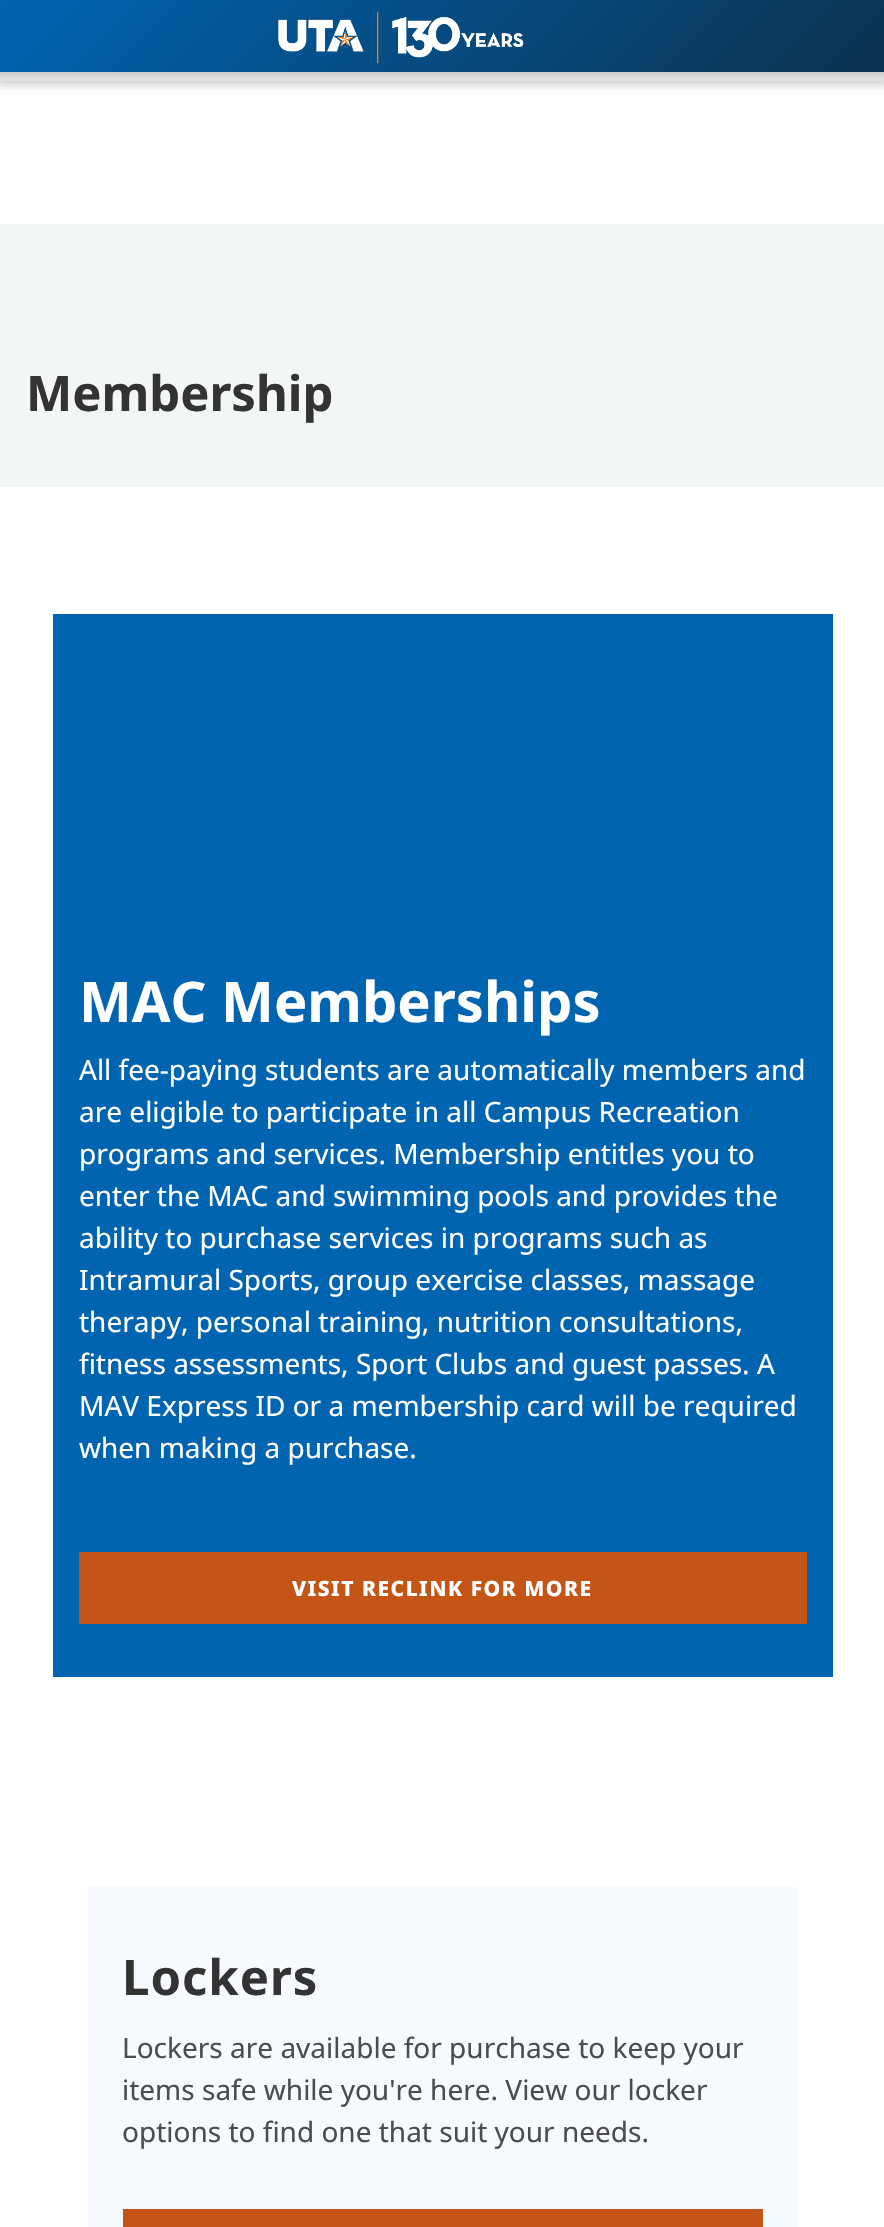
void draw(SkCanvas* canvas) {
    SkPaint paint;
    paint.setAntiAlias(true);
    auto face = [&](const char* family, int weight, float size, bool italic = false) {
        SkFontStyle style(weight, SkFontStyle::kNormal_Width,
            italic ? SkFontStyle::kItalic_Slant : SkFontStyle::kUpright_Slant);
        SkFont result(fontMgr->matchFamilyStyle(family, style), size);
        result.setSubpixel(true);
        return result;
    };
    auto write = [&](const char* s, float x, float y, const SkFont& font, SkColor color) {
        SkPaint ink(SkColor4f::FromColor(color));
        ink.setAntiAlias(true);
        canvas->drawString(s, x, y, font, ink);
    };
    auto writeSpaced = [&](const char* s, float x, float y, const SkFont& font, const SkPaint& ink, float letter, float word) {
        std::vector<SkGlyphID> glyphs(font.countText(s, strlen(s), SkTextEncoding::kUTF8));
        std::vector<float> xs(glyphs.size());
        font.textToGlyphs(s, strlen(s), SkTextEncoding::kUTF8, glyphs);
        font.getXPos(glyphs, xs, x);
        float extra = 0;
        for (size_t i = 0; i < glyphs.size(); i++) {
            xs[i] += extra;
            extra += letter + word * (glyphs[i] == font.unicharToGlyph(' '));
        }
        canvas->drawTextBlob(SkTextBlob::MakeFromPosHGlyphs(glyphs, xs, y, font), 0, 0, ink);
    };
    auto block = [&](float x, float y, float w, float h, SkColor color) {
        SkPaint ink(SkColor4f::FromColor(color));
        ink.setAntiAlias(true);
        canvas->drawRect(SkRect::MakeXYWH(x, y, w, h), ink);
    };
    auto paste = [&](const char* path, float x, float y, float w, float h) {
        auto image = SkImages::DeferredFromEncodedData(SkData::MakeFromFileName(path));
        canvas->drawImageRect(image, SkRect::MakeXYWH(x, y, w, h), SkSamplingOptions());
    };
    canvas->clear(SK_ColorWHITE);
    paint.setColor(SkColorSetARGB(18, 0, 0, 0));
    paint.setMaskFilter(SkMaskFilter::MakeBlur(kNormal_SkBlurStyle, 3.5f));
    canvas->drawRect(SkRect::MakeXYWH(0, 4, 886, 80), paint);
    paint.setMaskFilter(nullptr);
    block(0, 72, 884, 9, SK_ColorWHITE);
    {
        const SkColor colors[] = {SkColorSetRGB(0, 100, 177), SkColorSetRGB(11, 50, 80)};
        const float stops[] = {0, 1};
        const SkPoint ends[] = {{203, -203}, {682, 275}};
        paint.setShader(SkGradientShader::MakeLinear(ends, colors, stops, 2, SkTileMode::kClamp));
        paint.setAlpha(255);
    }
    canvas->drawRect(SkRect::MakeXYWH(0, 0, 884, 72), paint);
    paste("pic1.png", 278, 12, 246, 52);
    {
        const SkColor colors[] = {SkColorSetRGB(31, 31, 31), SkColorSetARGB(0, 31, 31, 31)};
        const float stops[] = {0, 1};
        const SkPoint ends[] = {{443, 0}, {443, 92}};
        paint.setShader(SkGradientShader::MakeLinear(ends, colors, stops, 2, SkTileMode::kClamp));
        paint.setAlpha(255);
    }
    canvas->drawRect(SkRect::MakeXYWH(0, 72, 884, 18), paint);
    block(0, 224, 884, 263, SkColorSetRGB(243, 246, 246));
    auto kFont1 = face("Noto Sans", 700, 49);
    write("Membership", 26, 411, kFont1, SkColorSetRGB(51, 51, 51));
    block(53, 614, 780, 1063, SkColorSetRGB(0, 100, 177));
    auto kFont2 = face("Noto Sans", 700, 56);
    write("MAC Memberships", 79, 1022, kFont2, SK_ColorWHITE);
    auto kFont3 = face("Noto Sans", 400, 28);
    write("All fee-paying students are automatically members and", 79, 1080, kFont3, SK_ColorWHITE);
    write("are eligible to participate in all Campus Recreation", 79, 1122, kFont3, SK_ColorWHITE);
    write("programs and services. Membership entitles you to", 79, 1164, kFont3, SK_ColorWHITE);
    write("enter the MAC and swimming pools and provides the", 79, 1206, kFont3, SK_ColorWHITE);
    write("ability to purchase services in programs such as", 79, 1248, kFont3, SK_ColorWHITE);
    write("Intramural Sports, group exercise classes, massage", 79, 1290, kFont3, SK_ColorWHITE);
    write("therapy, personal training, nutrition consultations,", 79, 1332, kFont3, SK_ColorWHITE);
    write("fitness assessments, Sport Clubs and guest passes. A", 79, 1374, kFont3, SK_ColorWHITE);
    write("MAV Express ID or a membership card will be required", 79, 1416, kFont3, SK_ColorWHITE);
    write("when making a purchase.", 79, 1458, kFont3, SK_ColorWHITE);
    {
        const SkColor colors[] = {SkColorSetRGB(196, 85, 23), SkColorSetRGB(204, 75, 20)};
        const float stops[] = {0.52f, 1};
        const SkPoint ends[] = {{79, 1624}, {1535, 1624}};
        paint.setShader(SkGradientShader::MakeLinear(ends, colors, stops, 2, SkTileMode::kClamp));
        paint.setAlpha(255);
    }
    canvas->drawRect(SkRect::MakeXYWH(79, 1552, 728, 72), paint);
    auto kFont4 = face("Noto Sans", 800, 21);
    paint.setShader(nullptr);
    paint.setColor(SK_ColorWHITE);
    writeSpaced("VISIT RECLINK FOR MORE", 292, 1596, kFont4, paint, 1.5f, 0);
    block(88, 1887, 710, 340, SkColorSetRGB(246, 250, 255));
    paint.setColor(SkColorSetRGB(51, 51, 51));
    writeSpaced("Lockers", 122, 1995, kFont1, paint, 1, 0);
    write("Lockers are available for purchase to keep your", 122, 2058, kFont3, SkColorSetRGB(76, 76, 76));
    write("items safe while you're here. View our locker", 122, 2100, kFont3, SkColorSetRGB(76, 76, 76));
    write("options to find one that suit your needs.", 122, 2142, kFont3, SkColorSetRGB(76, 76, 76));
    {
        const SkColor colors[] = {SkColorSetRGB(196, 85, 23), SkColorSetRGB(204, 75, 20)};
        const float stops[] = {0.52f, 1};
        const SkPoint ends[] = {{123, 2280}, {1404, 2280}};
        paint.setShader(SkGradientShader::MakeLinear(ends, colors, stops, 2, SkTileMode::kClamp));
        paint.setAlpha(255);
    }
    canvas->drawRect(SkRect::MakeXYWH(123, 2209, 640, 18), paint);
}
